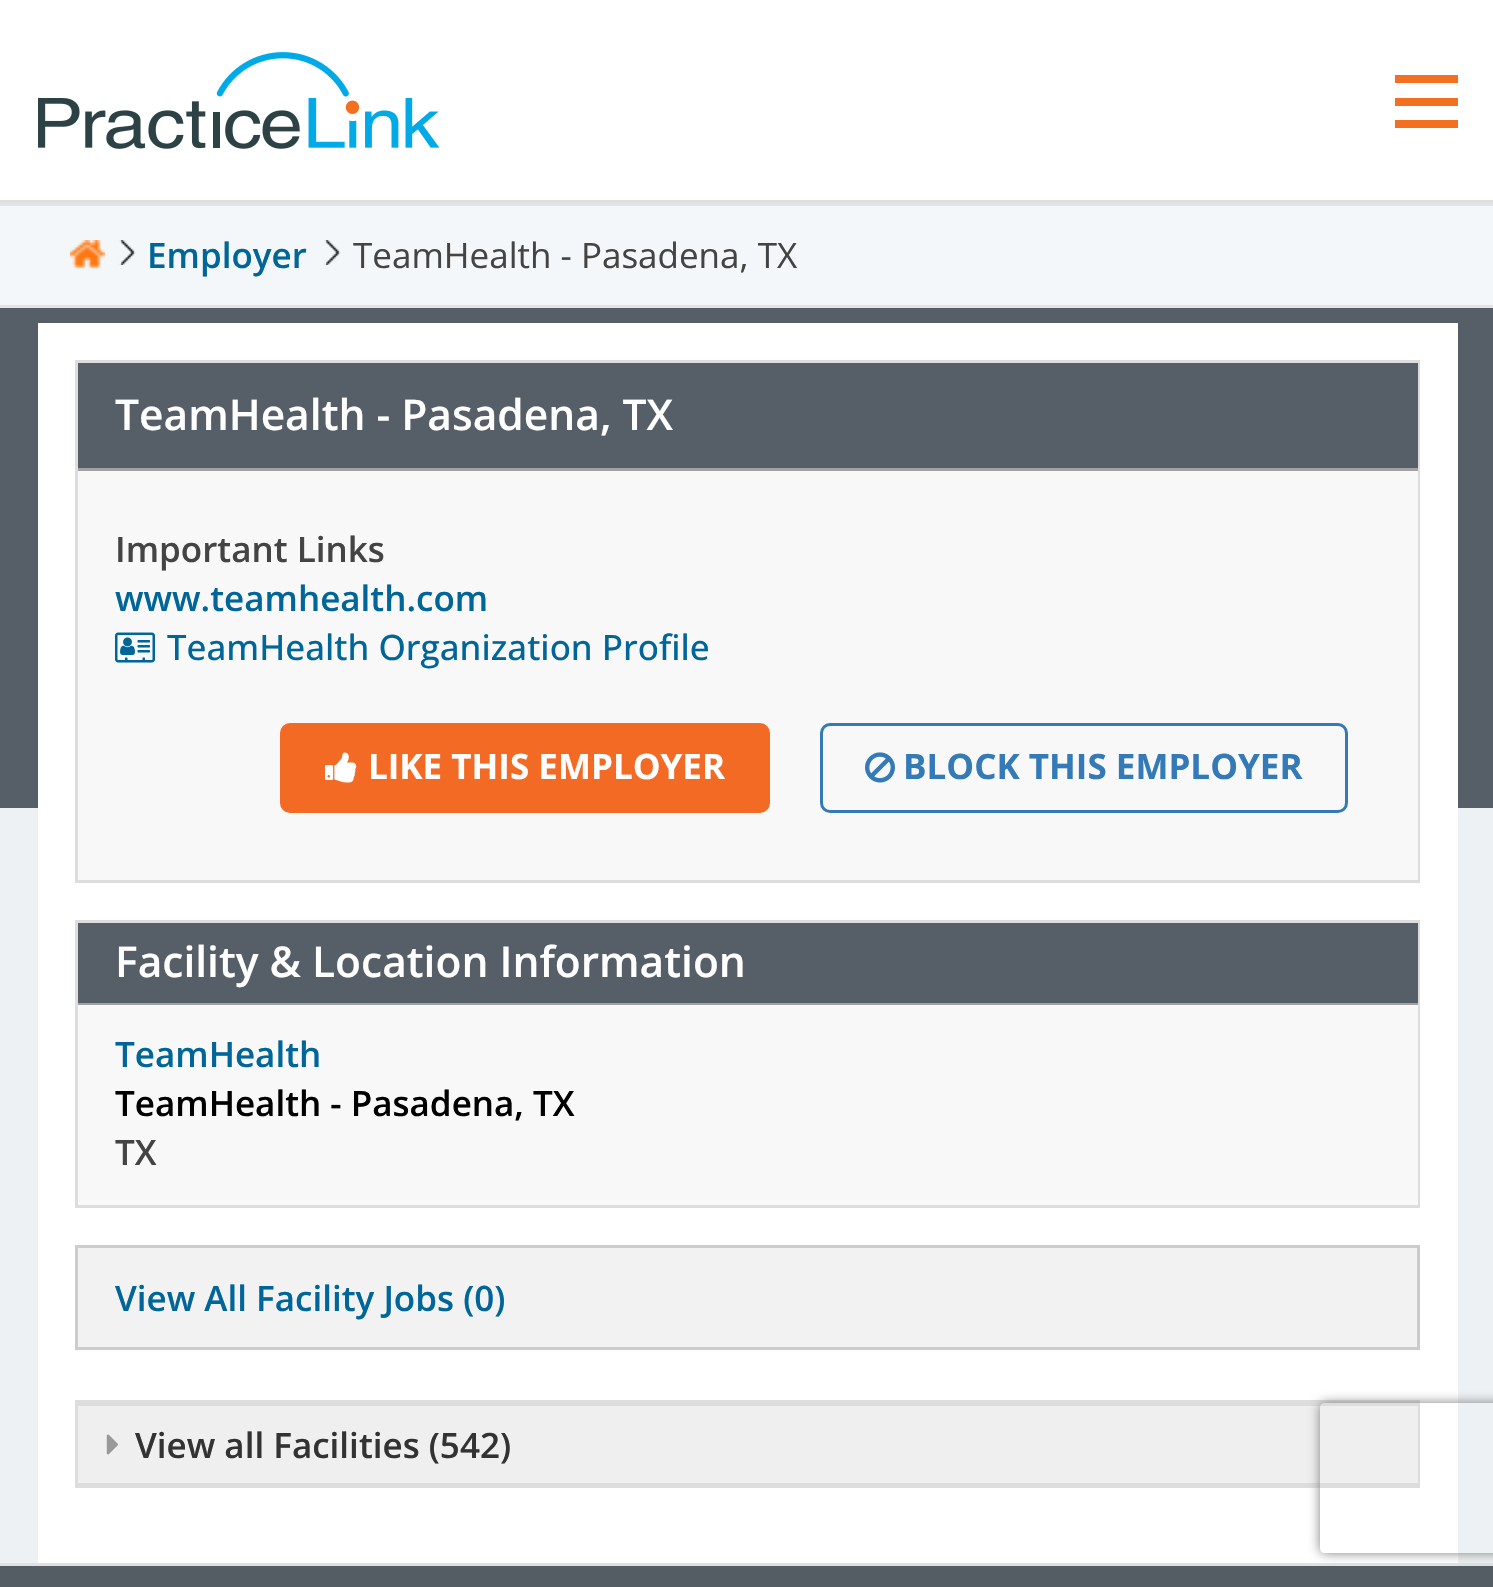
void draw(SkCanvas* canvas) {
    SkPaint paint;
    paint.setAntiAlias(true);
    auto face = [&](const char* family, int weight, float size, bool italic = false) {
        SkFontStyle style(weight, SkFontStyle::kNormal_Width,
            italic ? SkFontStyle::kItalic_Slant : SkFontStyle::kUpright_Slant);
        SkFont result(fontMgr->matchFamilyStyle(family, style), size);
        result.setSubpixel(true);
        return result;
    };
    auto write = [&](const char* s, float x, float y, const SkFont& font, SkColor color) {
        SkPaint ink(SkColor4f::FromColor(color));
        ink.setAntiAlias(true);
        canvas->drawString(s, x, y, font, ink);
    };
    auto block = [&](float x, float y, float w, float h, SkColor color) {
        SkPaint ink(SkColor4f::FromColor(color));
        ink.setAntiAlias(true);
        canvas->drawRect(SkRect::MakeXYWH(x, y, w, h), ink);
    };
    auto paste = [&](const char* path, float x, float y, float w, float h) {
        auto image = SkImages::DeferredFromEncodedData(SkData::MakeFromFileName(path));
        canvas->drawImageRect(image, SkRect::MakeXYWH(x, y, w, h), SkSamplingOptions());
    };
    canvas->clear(SkColorSetRGB(244, 247, 249));
    block(0, 0, 1493, 200, SK_ColorWHITE);
    block(0, 200, 1493, 3, SkColorSetRGB(223, 223, 223));
    paste("pic1.png", 38, 52, 402, 97);
    block(1395, 75, 63, 8, SkColorSetRGB(243, 112, 33));
    block(1395, 98, 63, 8, SkColorSetRGB(243, 112, 33));
    block(1395, 120, 63, 8, SkColorSetRGB(243, 112, 33));
    block(0, 203, 1493, 3, SkColorSetRGB(227, 227, 227));
    block(0, 305, 1493, 3, SkColorSetRGB(227, 227, 227));
    paste("pic2.png", 70, 240, 35, 29);
    paste("pic3.png", 119, 240, 17, 25);
    auto kFont1 = face("Open Sans", 600, 35);
    write("Employer", 147, 268, kFont1, SkColorSetRGB(0, 102, 153));
    paste("pic3.png", 324, 240, 17, 25);
    auto kFont2 = face("Open Sans", 400, 35);
    write("TeamHealth - Pasadena, TX", 353, 268, kFont2, SkColorSetRGB(68, 68, 68));
    block(0, 808, 1493, 755, SkColorSetRGB(237, 241, 243));
    block(0, 308, 1493, 500, SkColorSetRGB(86, 94, 103));
    block(38, 323, 1420, 1240, SK_ColorWHITE);
    paint.setStyle(SkPaint::kStroke_Style);
    paint.setStrokeWidth(3);
    paint.setColor(SkColorSetRGB(221, 221, 221));
    canvas->drawRect(SkRect::MakeXYWH(76.5f, 361.5f, 1342, 520), paint);
    block(78, 363, 1340, 105, SkColorSetRGB(86, 94, 103));
    block(78, 468, 1340, 3, SkColorSetRGB(161, 161, 161));
    auto kFont3 = face("Open Sans", 600, 42.5f);
    write("TeamHealth - Pasadena, TX", 115, 430, kFont3, SK_ColorWHITE);
    block(78, 471, 1340, 409, SkColorSetRGB(248, 248, 248));
    write("Important Links", 115, 562, kFont1, SkColorSetRGB(68, 68, 68));
    write("www.teamhealth.com", 115, 611, kFont1, SkColorSetRGB(0, 102, 153));
    paste("pic4.png", 115, 632, 40, 31);
    auto kFont4 = face("Open Sans", 500, 35);
    write("TeamHealth Organization Profile", 167, 660, kFont4, SkColorSetRGB(0, 102, 153));
    paint.setStyle(SkPaint::kFill_Style);
    paint.setColor(SkColorSetRGB(243, 106, 36));
    canvas->drawRoundRect(SkRect::MakeXYWH(281.5f, 724.5f, 487, 87), 8.5f, 8.5f, paint);
    paint.setStyle(SkPaint::kStroke_Style);
    canvas->drawRoundRect(SkRect::MakeXYWH(281.5f, 724.5f, 487, 87), 8.5f, 8.5f, paint);
    paste("pic5.png", 325, 752, 32, 31);
    auto kFont5 = face("Open Sans", 700, 35);
    write("LIKE THIS EMPLOYER", 368, 779, kFont5, SK_ColorWHITE);
    paint.setColor(SkColorSetRGB(51, 122, 183));
    canvas->drawRoundRect(SkRect::MakeXYWH(821.5f, 724.5f, 525, 87), 8.5f, 8.5f, paint);
    paste("pic6.png", 865, 752, 30, 31);
    write("BLOCK THIS EMPLOYER", 903, 779, kFont5, SkColorSetRGB(51, 122, 183));
    paint.setColor(SkColorSetRGB(221, 221, 221));
    canvas->drawRect(SkRect::MakeXYWH(76.5f, 921.5f, 1342, 285), paint);
    block(78, 923, 1340, 80, SkColorSetRGB(86, 94, 103));
    block(78, 1003, 1340, 2, SkColorSetRGB(161, 161, 161));
    write("Facility & Location Information", 115, 977, kFont3, SK_ColorWHITE);
    block(78, 1005, 1340, 200, SkColorSetRGB(248, 248, 248));
    write("TeamHealth", 115, 1067, kFont1, SkColorSetRGB(0, 102, 153));
    write("TeamHealth - Pasadena, TX", 115, 1116, kFont1, SK_ColorBLACK);
    write("TX", 115, 1165, kFont1, SkColorSetRGB(68, 68, 68));
    paint.setStyle(SkPaint::kFill_Style);
    paint.setColor(SkColorSetRGB(242, 242, 242));
    canvas->drawRect(SkRect::MakeXYWH(76.5f, 1246.5f, 1342, 102), paint);
    paint.setStyle(SkPaint::kStroke_Style);
    paint.setColor(SkColorSetRGB(204, 204, 204));
    canvas->drawRect(SkRect::MakeXYWH(76.5f, 1246.5f, 1342, 102), paint);
    write("View All Facility Jobs (0)", 115, 1311, kFont1, SkColorSetRGB(0, 102, 153));
    paint.setColor(SkColorSetRGB(221, 221, 221));
    canvas->drawRect(SkRect::MakeXYWH(76.5f, 1401.5f, 1342, 85), paint);
    block(78, 1406, 1340, 77, SkColorSetRGB(239, 239, 239));
    block(78, 1403, 1340, 3, SkColorSetRGB(221, 221, 221));
    block(78, 1483, 1340, 2, SkColorSetRGB(221, 221, 221));
    paste("pic7.png", 106, 1434, 12, 21);
    write("View all Facilities (542)", 135, 1458, kFont1, SkColorSetRGB(51, 51, 51));
    block(0, 1566, 1493, 21, SkColorSetRGB(84, 92, 100));
    block(0, 1563, 1493, 3, SkColorSetRGB(225, 225, 225));
    canvas->save();
    canvas->clipPath(SkPathBuilder(SkPathFillType::kEvenOdd).moveTo(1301, 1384).lineTo(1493, 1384).lineTo(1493, 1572).lineTo(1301, 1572).close().moveTo(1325, 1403).lineTo(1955, 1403).cubicTo(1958, 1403, 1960, 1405, 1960, 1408).lineTo(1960, 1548).cubicTo(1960, 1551, 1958, 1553, 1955, 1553).lineTo(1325, 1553).cubicTo(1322, 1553, 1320, 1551, 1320, 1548).lineTo(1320, 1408).cubicTo(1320, 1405, 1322, 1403, 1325, 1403).close().detach(), true);
    paint.setStyle(SkPaint::kFill_Style);
    paint.setColor(SkColorSetRGB(128, 128, 128));
    paint.setMaskFilter(SkMaskFilter::MakeBlur(kNormal_SkBlurStyle, 6));
    canvas->drawRoundRect(SkRect::MakeXYWH(1320, 1403, 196, 150), 5, 5, paint);
    paint.setMaskFilter(nullptr);
    canvas->restore();
}
